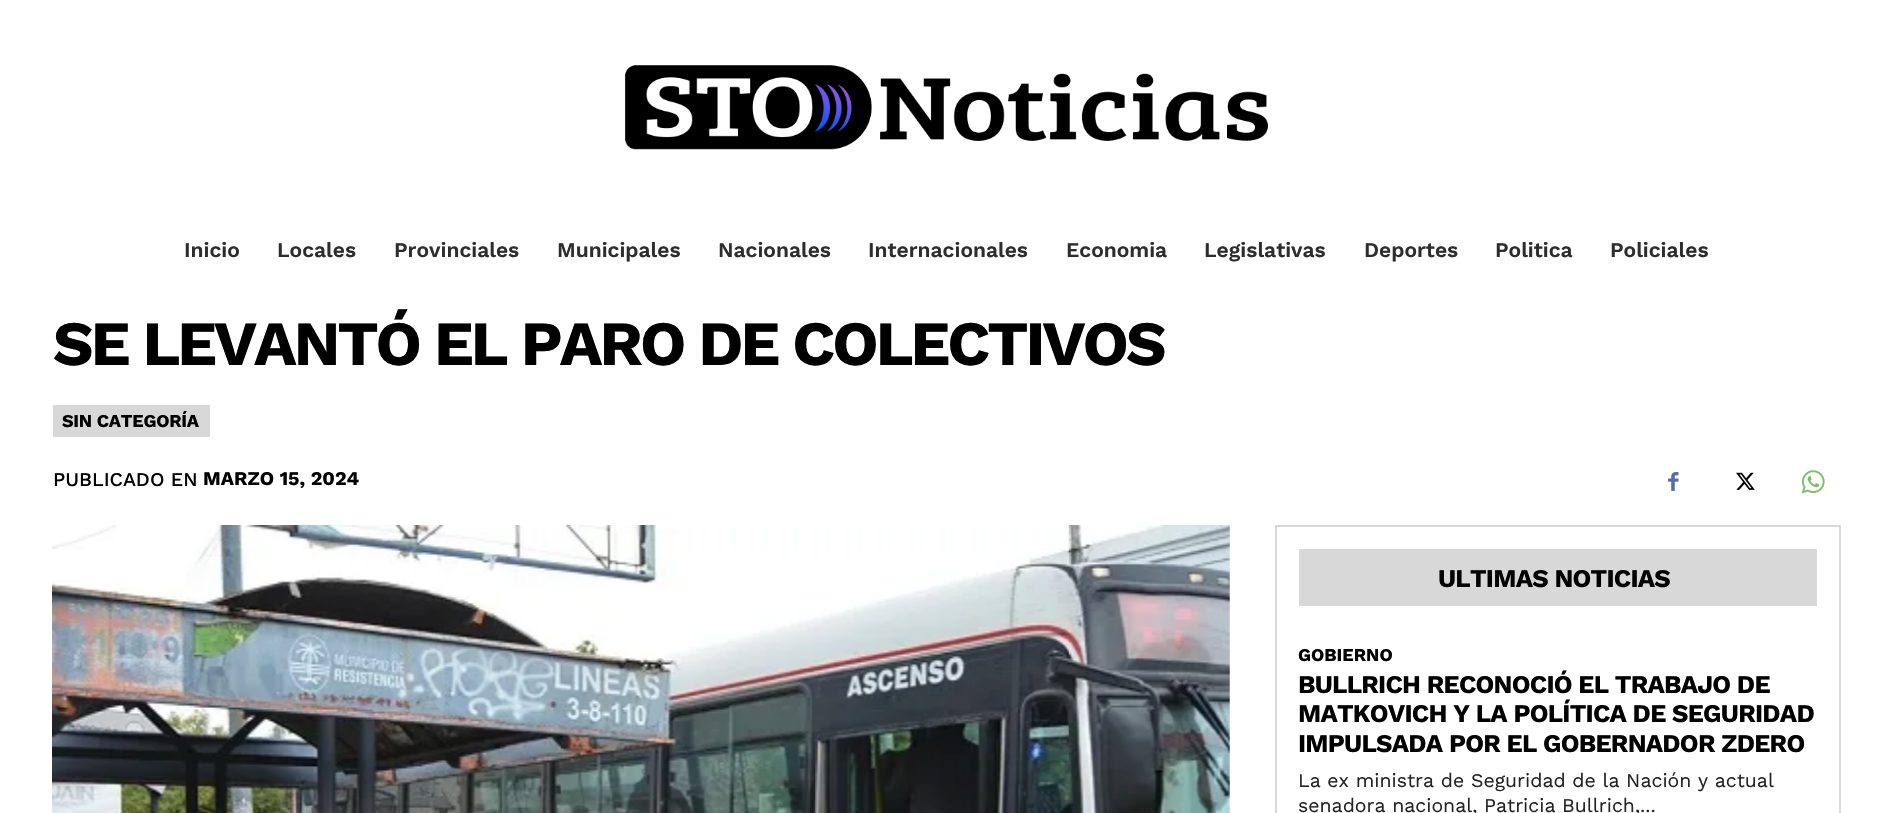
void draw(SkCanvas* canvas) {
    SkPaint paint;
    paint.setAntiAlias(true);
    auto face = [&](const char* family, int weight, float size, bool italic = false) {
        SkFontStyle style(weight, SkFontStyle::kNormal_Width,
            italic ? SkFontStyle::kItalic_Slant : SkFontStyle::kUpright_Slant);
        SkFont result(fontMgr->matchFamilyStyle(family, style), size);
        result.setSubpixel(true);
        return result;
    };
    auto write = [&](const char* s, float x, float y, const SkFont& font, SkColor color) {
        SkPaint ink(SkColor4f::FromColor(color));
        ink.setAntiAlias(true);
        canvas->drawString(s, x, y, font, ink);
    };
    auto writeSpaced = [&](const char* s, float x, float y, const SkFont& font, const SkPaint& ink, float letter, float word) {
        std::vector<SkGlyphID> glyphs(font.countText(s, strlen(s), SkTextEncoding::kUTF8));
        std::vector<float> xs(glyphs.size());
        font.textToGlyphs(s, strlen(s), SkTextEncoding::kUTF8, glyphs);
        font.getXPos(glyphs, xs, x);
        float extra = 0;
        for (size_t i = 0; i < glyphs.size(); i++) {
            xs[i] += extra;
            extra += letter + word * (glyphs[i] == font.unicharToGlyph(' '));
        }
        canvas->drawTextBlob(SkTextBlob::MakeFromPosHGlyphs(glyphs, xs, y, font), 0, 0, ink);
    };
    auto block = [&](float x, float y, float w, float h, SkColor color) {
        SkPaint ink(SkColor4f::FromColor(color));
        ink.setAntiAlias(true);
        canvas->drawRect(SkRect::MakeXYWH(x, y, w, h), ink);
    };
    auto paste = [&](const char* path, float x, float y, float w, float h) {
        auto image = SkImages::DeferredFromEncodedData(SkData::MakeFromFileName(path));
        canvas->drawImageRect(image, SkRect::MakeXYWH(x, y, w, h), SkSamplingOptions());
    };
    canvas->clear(SK_ColorWHITE);
    paste("pic1.png", 625, 65, 643, 85);
    auto kFont1 = face("Work Sans", 600, 21);
    write("Inicio", 184, 257, kFont1, SkColorSetRGB(45, 45, 45));
    write("Locales", 277, 257, kFont1, SkColorSetRGB(45, 45, 45));
    write("Provinciales", 394, 257, kFont1, SkColorSetRGB(45, 45, 45));
    write("Municipales", 557, 257, kFont1, SkColorSetRGB(45, 45, 45));
    write("Nacionales", 718, 257, kFont1, SkColorSetRGB(45, 45, 45));
    write("Internacionales", 868, 257, kFont1, SkColorSetRGB(45, 45, 45));
    write("Economia", 1066, 257, kFont1, SkColorSetRGB(45, 45, 45));
    write("Legislativas", 1204, 257, kFont1, SkColorSetRGB(45, 45, 45));
    write("Deportes", 1364, 257, kFont1, SkColorSetRGB(45, 45, 45));
    write("Politica", 1495, 257, kFont1, SkColorSetRGB(45, 45, 45));
    write("Policiales", 1610, 257, kFont1, SkColorSetRGB(45, 45, 45));
    auto kFont2 = face("Work Sans", 700, 63);
    paint.setColor(SK_ColorBLACK);
    writeSpaced("SE LEVANTÓ EL PARO DE COLECTIVOS", 53, 365, kFont2, paint, -3, 0);
    block(53, 405, 157, 32, SkColorSetRGB(216, 216, 216));
    auto kFont3 = face("Work Sans", 700, 18);
    writeSpaced("SIN CATEGORÍA", 62, 427, kFont3, paint, -0.25f, 0);
    auto kFont4 = face("Work Sans", 500, 19.5f);
    write("PUBLICADO EN", 53, 486, kFont4, SK_ColorBLACK);
    auto kFont5 = face("Work Sans", 700, 19.5f);
    write("MARZO 15, 2024", 203, 485, kFont5, SK_ColorBLACK);
    paste("pic2.png", 1668, 472, 11, 19);
    paste("pic3.png", 1736, 472, 19, 18);
    paste("pic4.png", 1801, 470, 24, 24);
    paste("pic5.png", 52, 525, 1178, 288);
    paint.setStyle(SkPaint::kStroke_Style);
    paint.setStrokeWidth(2);
    paint.setColor(SkColorSetRGB(216, 216, 216));
    canvas->drawRect(SkRect::MakeXYWH(1276, 526, 564, 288), paint);
    block(1299, 549, 518, 57, SkColorSetRGB(216, 216, 216));
    auto kFont6 = face("Work Sans", 700, 25.5f);
    paint.setStyle(SkPaint::kFill_Style);
    paint.setColor(SK_ColorBLACK);
    writeSpaced("ULTIMAS NOTICIAS", 1438, 587, kFont6, paint, -0.75f, 0);
    write("GOBIERNO", 1298, 661, kFont3, SK_ColorBLACK);
    writeSpaced("BULLRICH RECONOCIÓ EL TRABAJO DE", 1298, 693, kFont6, paint, -0.75f, 0);
    writeSpaced("MATKOVICH Y LA POLÍTICA DE SEGURIDAD", 1298, 722, kFont6, paint, -0.75f, 0);
    writeSpaced("IMPULSADA POR EL GOBERNADOR ZDERO", 1298, 752, kFont6, paint, -0.75f, 0);
    auto kFont7 = face("Work Sans", 400, 19.5f);
    write("La ex ministra de Seguridad de la Nación y actual", 1298, 787, kFont7, SkColorSetRGB(34, 34, 34));
    write("senadora nacional, Patricia Bullrich,...", 1298, 812, kFont7, SkColorSetRGB(34, 34, 34));
}
